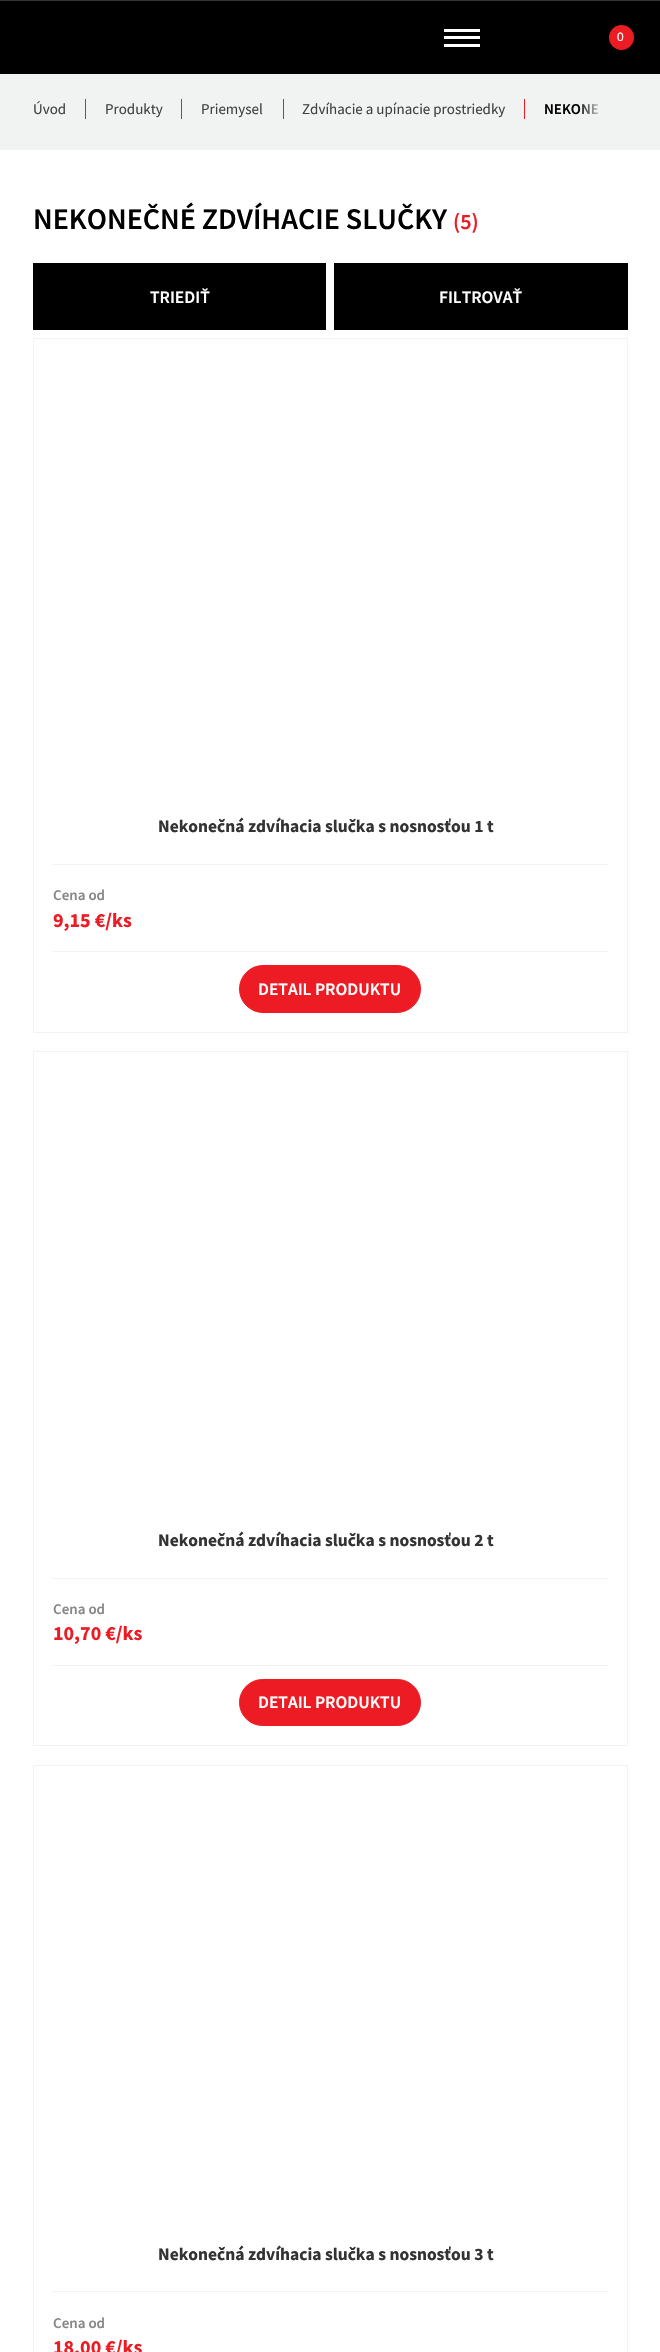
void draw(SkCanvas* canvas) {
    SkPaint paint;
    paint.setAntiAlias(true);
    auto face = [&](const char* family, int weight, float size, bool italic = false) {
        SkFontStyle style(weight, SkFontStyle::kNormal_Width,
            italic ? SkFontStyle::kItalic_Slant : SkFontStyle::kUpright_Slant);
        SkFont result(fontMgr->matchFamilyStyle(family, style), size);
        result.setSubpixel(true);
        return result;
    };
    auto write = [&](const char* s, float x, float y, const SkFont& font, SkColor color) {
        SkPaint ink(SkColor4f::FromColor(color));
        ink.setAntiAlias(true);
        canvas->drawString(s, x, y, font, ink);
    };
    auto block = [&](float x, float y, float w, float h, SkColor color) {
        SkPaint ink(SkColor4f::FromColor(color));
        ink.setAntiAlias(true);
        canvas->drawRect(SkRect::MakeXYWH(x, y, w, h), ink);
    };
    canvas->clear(SK_ColorWHITE);
    block(0, 1, 660, 73, SK_ColorBLACK);
    block(0, 0, 660, 1, SkColorSetRGB(51, 51, 51));
    block(444, 36, 36, 3, SK_ColorWHITE);
    block(444, 29, 36, 3, SK_ColorWHITE);
    block(444, 44, 36, 3, SK_ColorWHITE);
    paint.setColor(SkColorSetRGB(236, 28, 36));
    canvas->drawCircle(621.5f, 37.5f, 12.5f, paint);
    auto kFont1 = face("Liberation Sans", 400, 12);
    write("0", 617, 41, kFont1, SK_ColorWHITE);
    block(0, 74, 660, 76, SkColorSetRGB(241, 242, 242));
    auto kFont2 = face("Source Sans Pro", 400, 15);
    write("Úvod", 33, 114, kFont2, SkColorSetRGB(65, 64, 66));
    block(85, 99, 1, 20, SkColorSetRGB(236, 28, 36));
    write("Produkty", 105, 114, kFont2, SkColorSetRGB(65, 64, 66));
    block(181, 99, 1, 20, SkColorSetRGB(236, 28, 36));
    write("Priemysel", 201, 114, kFont2, SkColorSetRGB(65, 64, 66));
    block(283, 99, 1, 20, SkColorSetRGB(236, 28, 36));
    write("Zdvíhacie a upínacie prostriedky", 302, 114, kFont2, SkColorSetRGB(65, 64, 66));
    block(524, 99, 1, 20, SkColorSetRGB(236, 28, 36));
    auto kFont3 = face("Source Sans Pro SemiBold", 600, 15);
    write("NEKONE", 544, 114, kFont3, SK_ColorBLACK);
    {
        const SkColor colors[] = {SkColorSetARGB(0, 241, 242, 242), SkColorSetRGB(241, 242, 242)};
        const float stops[] = {0, 0.5f};
        const SkPoint ends[] = {{578, 109}, {628, 109}};
        paint.setShader(SkGradientShader::MakeLinear(ends, colors, stops, 2, SkTileMode::kClamp));
        paint.setAlpha(255);
    }
    canvas->drawRect(SkRect::MakeXYWH(579, 104, 20, 10), paint);
    auto kFont4 = face("Source Sans Pro SemiBold", 600, 30);
    write("NEKONEČNÉ ZDVÍHACIE SLUČKY", 33, 229, kFont4, SK_ColorBLACK);
    auto kFont5 = face("Source Sans Pro SemiBold", 600, 22);
    write("(5)", 453, 229, kFont5, SkColorSetRGB(236, 28, 36));
    block(33, 263, 293, 67, SK_ColorBLACK);
    auto kFont6 = face("Source Sans Pro SemiBold", 600, 17.5f);
    write("TRIEDIŤ", 150, 303, kFont6, SK_ColorWHITE);
    block(334, 263, 294, 67, SK_ColorBLACK);
    write("FILTROVAŤ", 439, 303, kFont6, SK_ColorWHITE);
    paint.setStyle(SkPaint::kStroke_Style);
    paint.setStrokeWidth(1);
    paint.setShader(nullptr);
    paint.setColor(SkColorSetRGB(241, 242, 242));
    canvas->drawRect(SkRect::MakeXYWH(33.5f, 338.5f, 594, 694), paint);
    auto kFont7 = face("Source Sans Pro", 700, 17.5f);
    write("Nekonečná zdvíhacia slučka s nosnosťou 1 t", 158, 832, kFont7, SkColorSetRGB(51, 51, 51));
    block(53, 864, 555, 1, SkColorSetRGB(241, 242, 242));
    block(53, 951, 555, 1, SkColorSetRGB(241, 242, 242));
    write("Cena od", 53, 900, kFont3, SkColorSetRGB(135, 135, 135));
    auto kFont8 = face("Source Sans Pro", 700, 20);
    write("9,15 €/ks", 53, 927, kFont8, SkColorSetRGB(236, 28, 36));
    paint.setStyle(SkPaint::kFill_Style);
    paint.setColor(SkColorSetRGB(236, 27, 36));
    canvas->drawRoundRect(SkRect::MakeXYWH(239.5f, 965.5f, 181, 47), 23.5f, 23.5f, paint);
    paint.setStyle(SkPaint::kStroke_Style);
    canvas->drawRoundRect(SkRect::MakeXYWH(239.5f, 965.5f, 181, 47), 23.5f, 23.5f, paint);
    write("DETAIL PRODUKTU", 258, 995, kFont6, SK_ColorWHITE);
    paint.setColor(SkColorSetRGB(241, 242, 242));
    canvas->drawRect(SkRect::MakeXYWH(33.5f, 1051.5f, 594, 694), paint);
    write("Nekonečná zdvíhacia slučka s nosnosťou 2 t", 158, 1546, kFont7, SkColorSetRGB(51, 51, 51));
    block(53, 1578, 555, 1, SkColorSetRGB(241, 242, 242));
    block(53, 1665, 555, 1, SkColorSetRGB(241, 242, 242));
    write("Cena od", 53, 1614, kFont3, SkColorSetRGB(135, 135, 135));
    write("10,70 €/ks", 53, 1640, kFont8, SkColorSetRGB(236, 28, 36));
    paint.setStyle(SkPaint::kFill_Style);
    paint.setColor(SkColorSetRGB(236, 27, 36));
    canvas->drawRoundRect(SkRect::MakeXYWH(239.5f, 1679.5f, 181, 46), 23, 23, paint);
    paint.setStyle(SkPaint::kStroke_Style);
    canvas->drawRoundRect(SkRect::MakeXYWH(239.5f, 1679.5f, 181, 46), 23, 23, paint);
    write("DETAIL PRODUKTU", 258, 1708, kFont6, SK_ColorWHITE);
    paint.setColor(SkColorSetRGB(241, 242, 242));
    canvas->drawRect(SkRect::MakeXYWH(33.5f, 1765.5f, 594, 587), paint);
    write("Nekonečná zdvíhacia slučka s nosnosťou 3 t", 158, 2260, kFont7, SkColorSetRGB(51, 51, 51));
    block(53, 2291, 555, 1, SkColorSetRGB(241, 242, 242));
    write("Cena od", 53, 2328, kFont3, SkColorSetRGB(135, 135, 135));
    write("18,00 €/ks", 53, 2354, kFont8, SkColorSetRGB(236, 28, 36));
}
